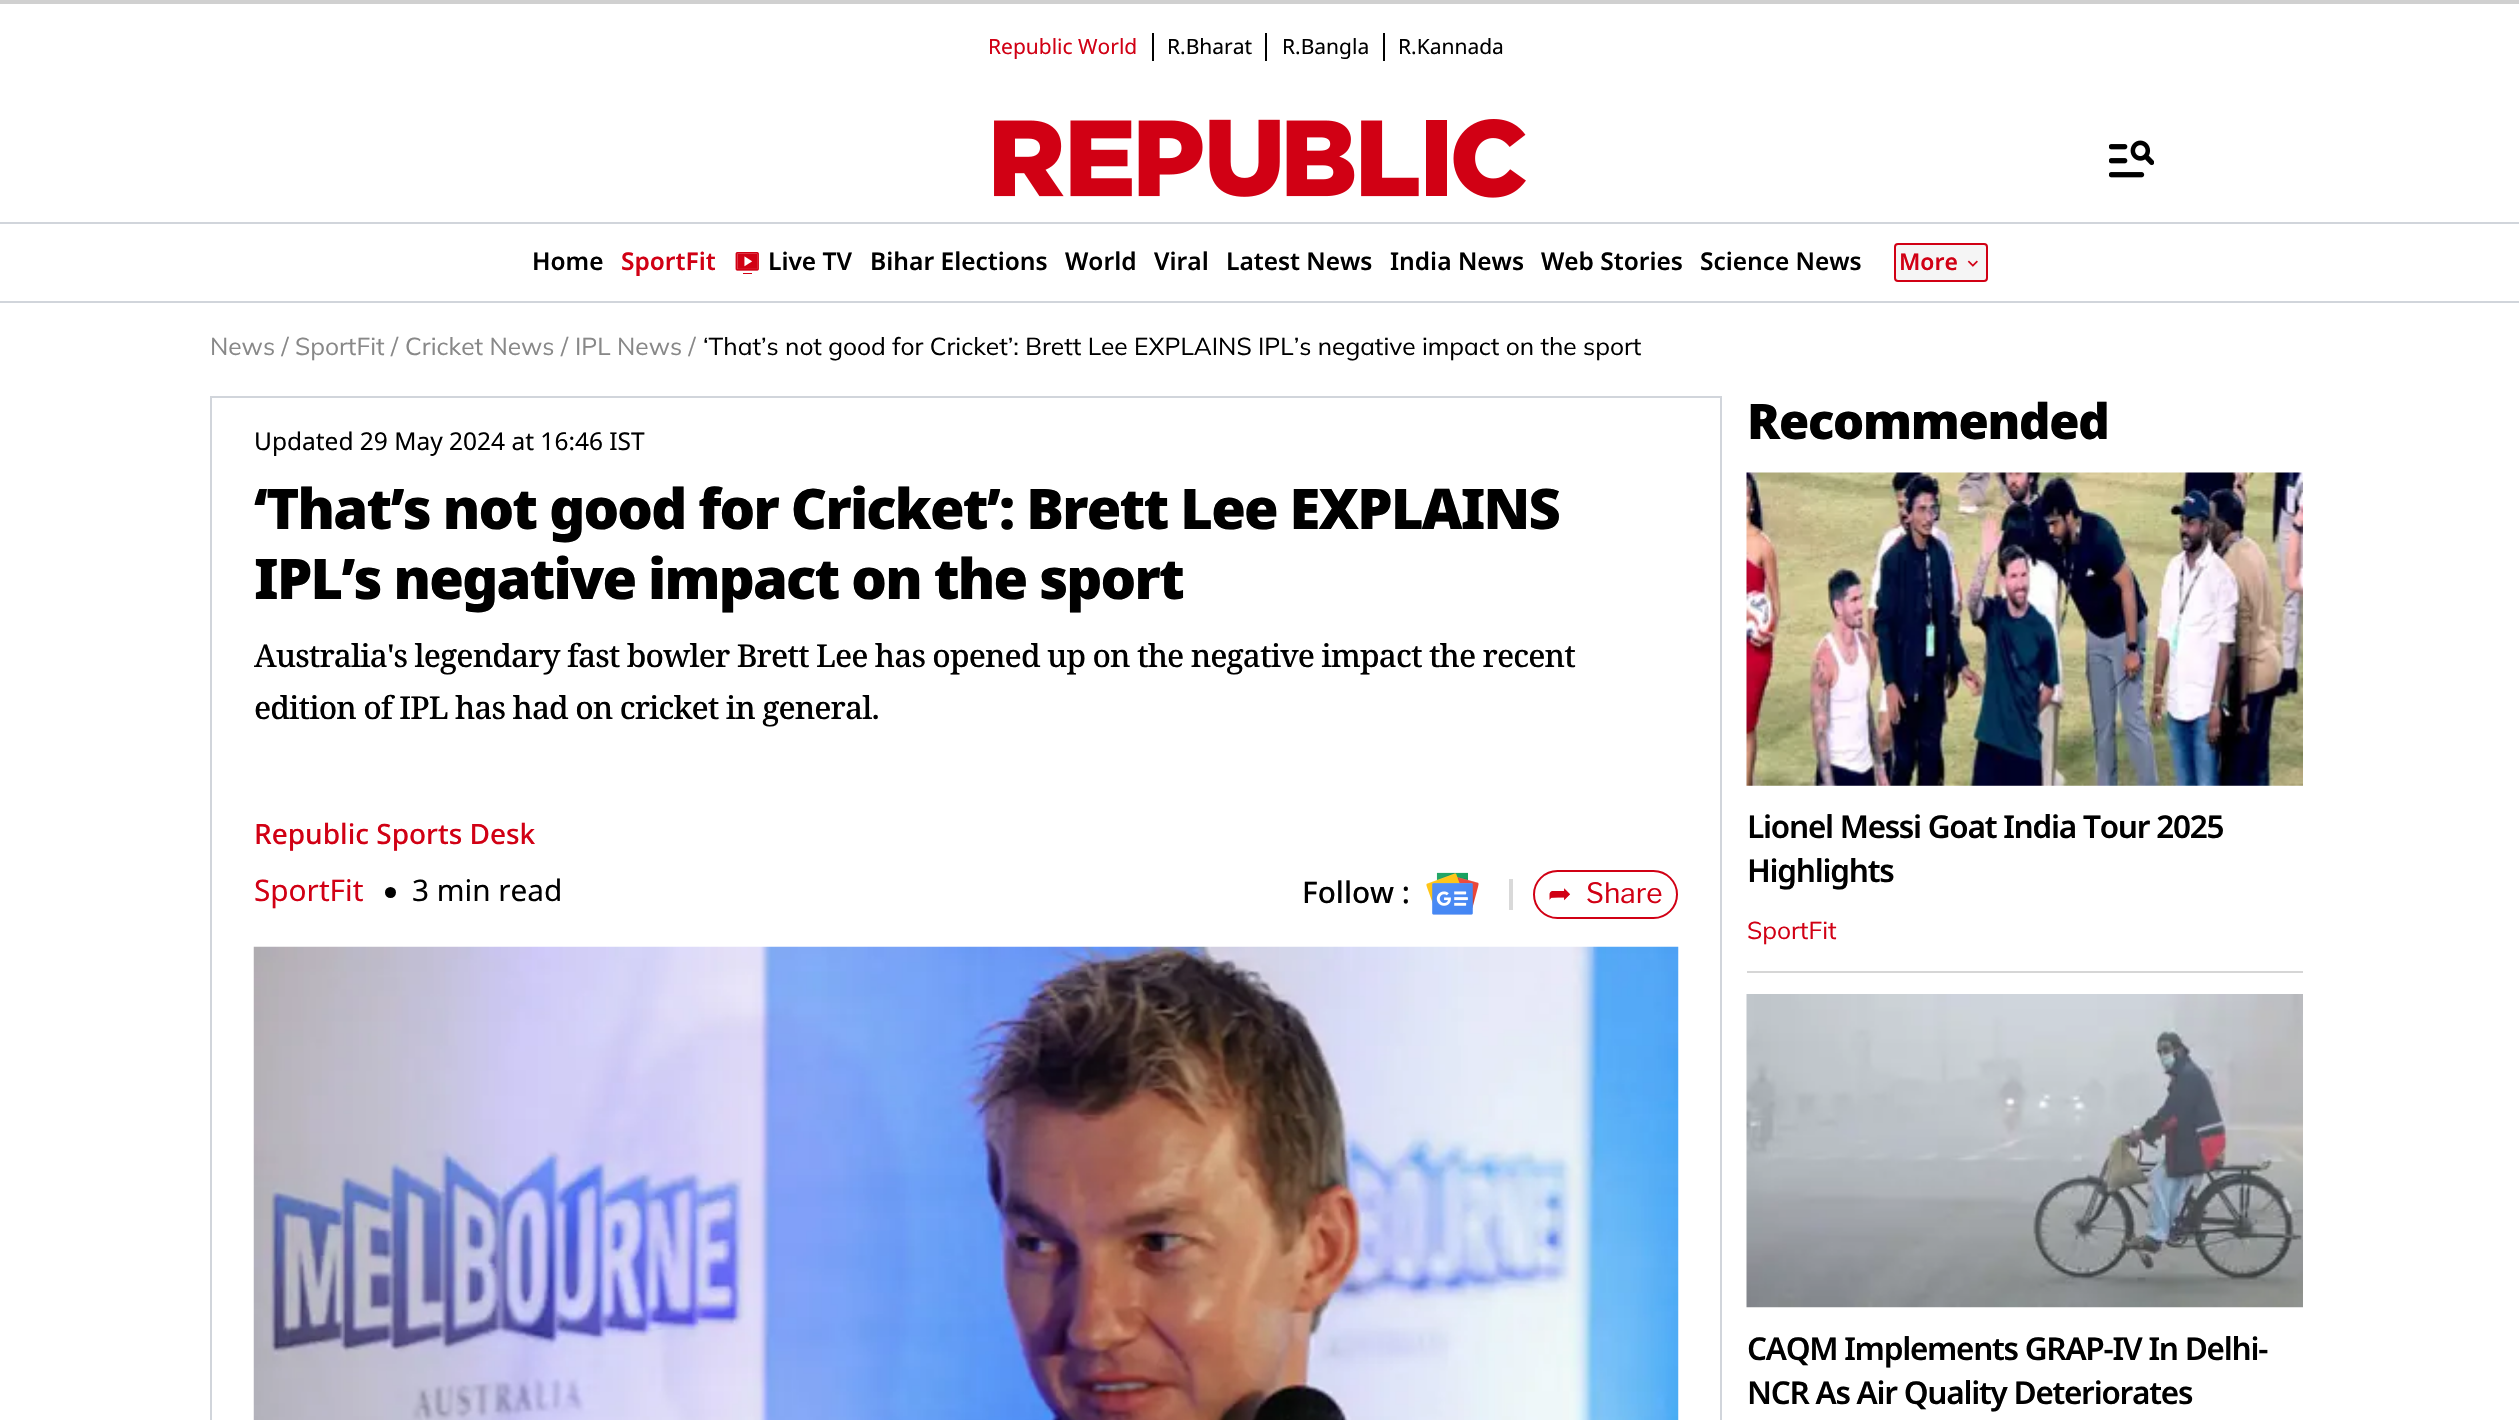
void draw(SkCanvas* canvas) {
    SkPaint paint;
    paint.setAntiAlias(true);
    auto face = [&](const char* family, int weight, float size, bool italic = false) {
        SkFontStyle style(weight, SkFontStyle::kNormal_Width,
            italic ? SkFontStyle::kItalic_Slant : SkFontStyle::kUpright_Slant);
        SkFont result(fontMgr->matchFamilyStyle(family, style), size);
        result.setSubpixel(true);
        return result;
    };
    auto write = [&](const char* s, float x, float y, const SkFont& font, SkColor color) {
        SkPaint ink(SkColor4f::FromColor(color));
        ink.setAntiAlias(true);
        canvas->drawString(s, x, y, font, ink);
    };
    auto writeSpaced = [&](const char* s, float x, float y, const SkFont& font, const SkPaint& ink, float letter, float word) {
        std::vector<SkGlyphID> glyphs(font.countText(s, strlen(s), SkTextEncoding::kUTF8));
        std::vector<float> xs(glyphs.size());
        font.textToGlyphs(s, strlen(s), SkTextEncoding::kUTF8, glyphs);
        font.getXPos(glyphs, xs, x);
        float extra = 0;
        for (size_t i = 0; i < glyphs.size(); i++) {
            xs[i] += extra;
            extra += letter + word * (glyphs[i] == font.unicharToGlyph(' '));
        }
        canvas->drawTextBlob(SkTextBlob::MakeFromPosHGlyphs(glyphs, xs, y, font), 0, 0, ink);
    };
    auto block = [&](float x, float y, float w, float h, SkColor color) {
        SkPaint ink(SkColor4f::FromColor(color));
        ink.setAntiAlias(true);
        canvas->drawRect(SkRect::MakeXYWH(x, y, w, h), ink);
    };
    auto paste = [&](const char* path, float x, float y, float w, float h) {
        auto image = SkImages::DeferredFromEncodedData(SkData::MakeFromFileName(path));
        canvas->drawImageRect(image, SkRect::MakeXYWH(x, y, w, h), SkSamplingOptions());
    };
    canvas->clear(SK_ColorWHITE);
    block(0, 0, 2519, 4, SkColorSetRGB(208, 208, 208));
    block(1152, 33, 2, 28, SK_ColorBLACK);
    auto kFont1 = face("Noto Sans", 400, 21);
    write("Republic World", 988, 54, kFont1, SkColorSetRGB(209, 0, 20));
    block(1265, 33, 2, 28, SK_ColorBLACK);
    write("R.Bharat", 1167, 54, kFont1, SK_ColorBLACK);
    block(1383, 33, 2, 28, SK_ColorBLACK);
    write("R.Bangla", 1282, 54, kFont1, SK_ColorBLACK);
    write("R.Kannada", 1398, 54, kFont1, SK_ColorBLACK);
    paste("pic1.png", 994, 119, 532, 79);
    paste("pic2.png", 2109, 140, 45, 38);
    block(0, 222, 2519, 2, SkColorSetRGB(209, 213, 219));
    block(0, 301, 2519, 2, SkColorSetRGB(209, 213, 219));
    auto kFont2 = face("Noto Sans", 600, 24.5f);
    write("Home", 532, 270, kFont2, SK_ColorBLACK);
    write("SportFit", 621, 270, kFont2, SkColorSetRGB(209, 0, 20));
    paste("pic3.png", 735, 252, 24, 22);
    write("Live TV", 768, 270, kFont2, SK_ColorBLACK);
    write("Bihar Elections", 870, 270, kFont2, SK_ColorBLACK);
    write("World", 1065, 270, kFont2, SK_ColorBLACK);
    write("Viral", 1154, 270, kFont2, SK_ColorBLACK);
    write("Latest News", 1226, 270, kFont2, SK_ColorBLACK);
    write("India News", 1390, 270, kFont2, SK_ColorBLACK);
    write("Web Stories", 1541, 270, kFont2, SK_ColorBLACK);
    write("Science News", 1700, 270, kFont2, SK_ColorBLACK);
    paint.setColor(SkColorSetRGB(245, 245, 245));
    canvas->drawRoundRect(SkRect::MakeXYWH(1895, 244, 92, 37), 3, 3, paint);
    paint.setStyle(SkPaint::kStroke_Style);
    paint.setStrokeWidth(2);
    paint.setColor(SkColorSetRGB(209, 0, 20));
    canvas->drawRoundRect(SkRect::MakeXYWH(1895, 244, 92, 37), 3, 3, paint);
    auto kFont3 = face("Noto Sans", 600, 23);
    write("More", 1899, 270, kFont3, SkColorSetRGB(209, 0, 20));
    paste("pic4.png", 1967, 260, 11, 7);
    auto kFont4 = face("Mulish", 400, 24.5f);
    write("News /", 210, 355, kFont4, SkColorSetRGB(136, 136, 136));
    write("SportFit /", 295, 355, kFont4, SkColorSetRGB(136, 136, 136));
    write("Cricket News /", 405, 355, kFont4, SkColorSetRGB(136, 136, 136));
    write("IPL News /", 575, 355, kFont4, SkColorSetRGB(136, 136, 136));
    write("‘That’s not good for Cricket’: Brett Lee EXPLAINS IPL’s negative impact on the sport", 703, 355, kFont4, SK_ColorBLACK);
    paint.setColor(SkColorSetRGB(209, 213, 219));
    canvas->drawRect(SkRect::MakeXYWH(211, 397, 1510, 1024), paint);
    auto kFont5 = face("Noto Sans", 400, 24.5f);
    write("Updated 29 May 2024 at 16:46 IST", 254, 450, kFont5, SK_ColorBLACK);
    auto kFont6 = face("Noto Sans", 900, 56);
    paint.setStyle(SkPaint::kFill_Style);
    paint.setColor(SK_ColorBLACK);
    writeSpaced("‘That’s not good for Cricket’: Brett Lee EXPLAINS", 254, 529, kFont6, paint, -1.75f, 0);
    writeSpaced("IPL’s negative impact on the sport", 254, 599, kFont6, paint, -1.75f, 0);
    auto kFont7 = face("Noto Serif", 500, 31.5f);
    writeSpaced("Australia's legendary fast bowler Brett Lee has opened up on the negative impact the recent", 254, 667, kFont7, paint, -0.88f, 0);
    writeSpaced("edition of IPL has had on cricket in general.", 254, 719, kFont7, paint, -0.88f, 0);
    auto kFont8 = face("Noto Sans", 500, 28);
    write("Republic Sports Desk", 254, 844, kFont8, SkColorSetRGB(209, 0, 20));
    auto kFont9 = face("Noto Sans", 400, 29.75f);
    write("SportFit", 254, 901, kFont9, SkColorSetRGB(209, 0, 20));
    canvas->drawCircle(390.5f, 892.5f, 5.5f, paint);
    write("3 min read", 412, 901, kFont9, SK_ColorBLACK);
    auto kFont10 = face("Noto Sans", 500, 29.75f);
    write("Follow :", 1302, 903, kFont10, SK_ColorBLACK);
    paste("pic5.png", 1426, 872, 53, 43);
    block(1509, 879, 4, 31, SkColorSetRGB(217, 217, 217));
    paint.setStyle(SkPaint::kStroke_Style);
    paint.setColor(SkColorSetRGB(209, 0, 20));
    canvas->drawRoundRect(SkRect::MakeXYWH(1534, 871, 143, 47), 23.5f, 23.5f, paint);
    auto kFont11 = face("DejaVu Sans", 400, 28);
    write("➦", 1548, 903, kFont11, SkColorSetRGB(209, 0, 20));
    auto kFont12 = face("Libre Franklin", 400, 28);
    write("Share", 1586, 903, kFont12, SkColorSetRGB(209, 0, 20));
    paste("pic6.png", 253, 946, 1426, 474);
    auto kFont13 = face("Noto Sans", 900, 49);
    paint.setStyle(SkPaint::kFill_Style);
    paint.setColor(SK_ColorBLACK);
    writeSpaced("Recommended", 1747, 439, kFont13, paint, -1.25f, 0);
    paste("pic7.png", 1746, 472, 557, 314);
    auto kFont14 = face("Noto Sans", 600, 31.5f);
    writeSpaced("Lionel Messi Goat India Tour 2025", 1747, 838, kFont14, paint, -1.25f, 0);
    writeSpaced("Highlights", 1747, 882, kFont14, paint, -1.25f, 0);
    write("SportFit", 1747, 939, kFont4, SkColorSetRGB(209, 0, 20));
    block(1747, 971, 556, 2, SkColorSetRGB(214, 214, 214));
    paste("pic8.png", 1746, 994, 557, 314);
    writeSpaced("CAQM Implements GRAP-IV In Delhi-", 1747, 1360, kFont14, paint, -1.25f, 0);
    writeSpaced("NCR As Air Quality Deteriorates", 1747, 1404, kFont14, paint, -1.25f, 0);
}
